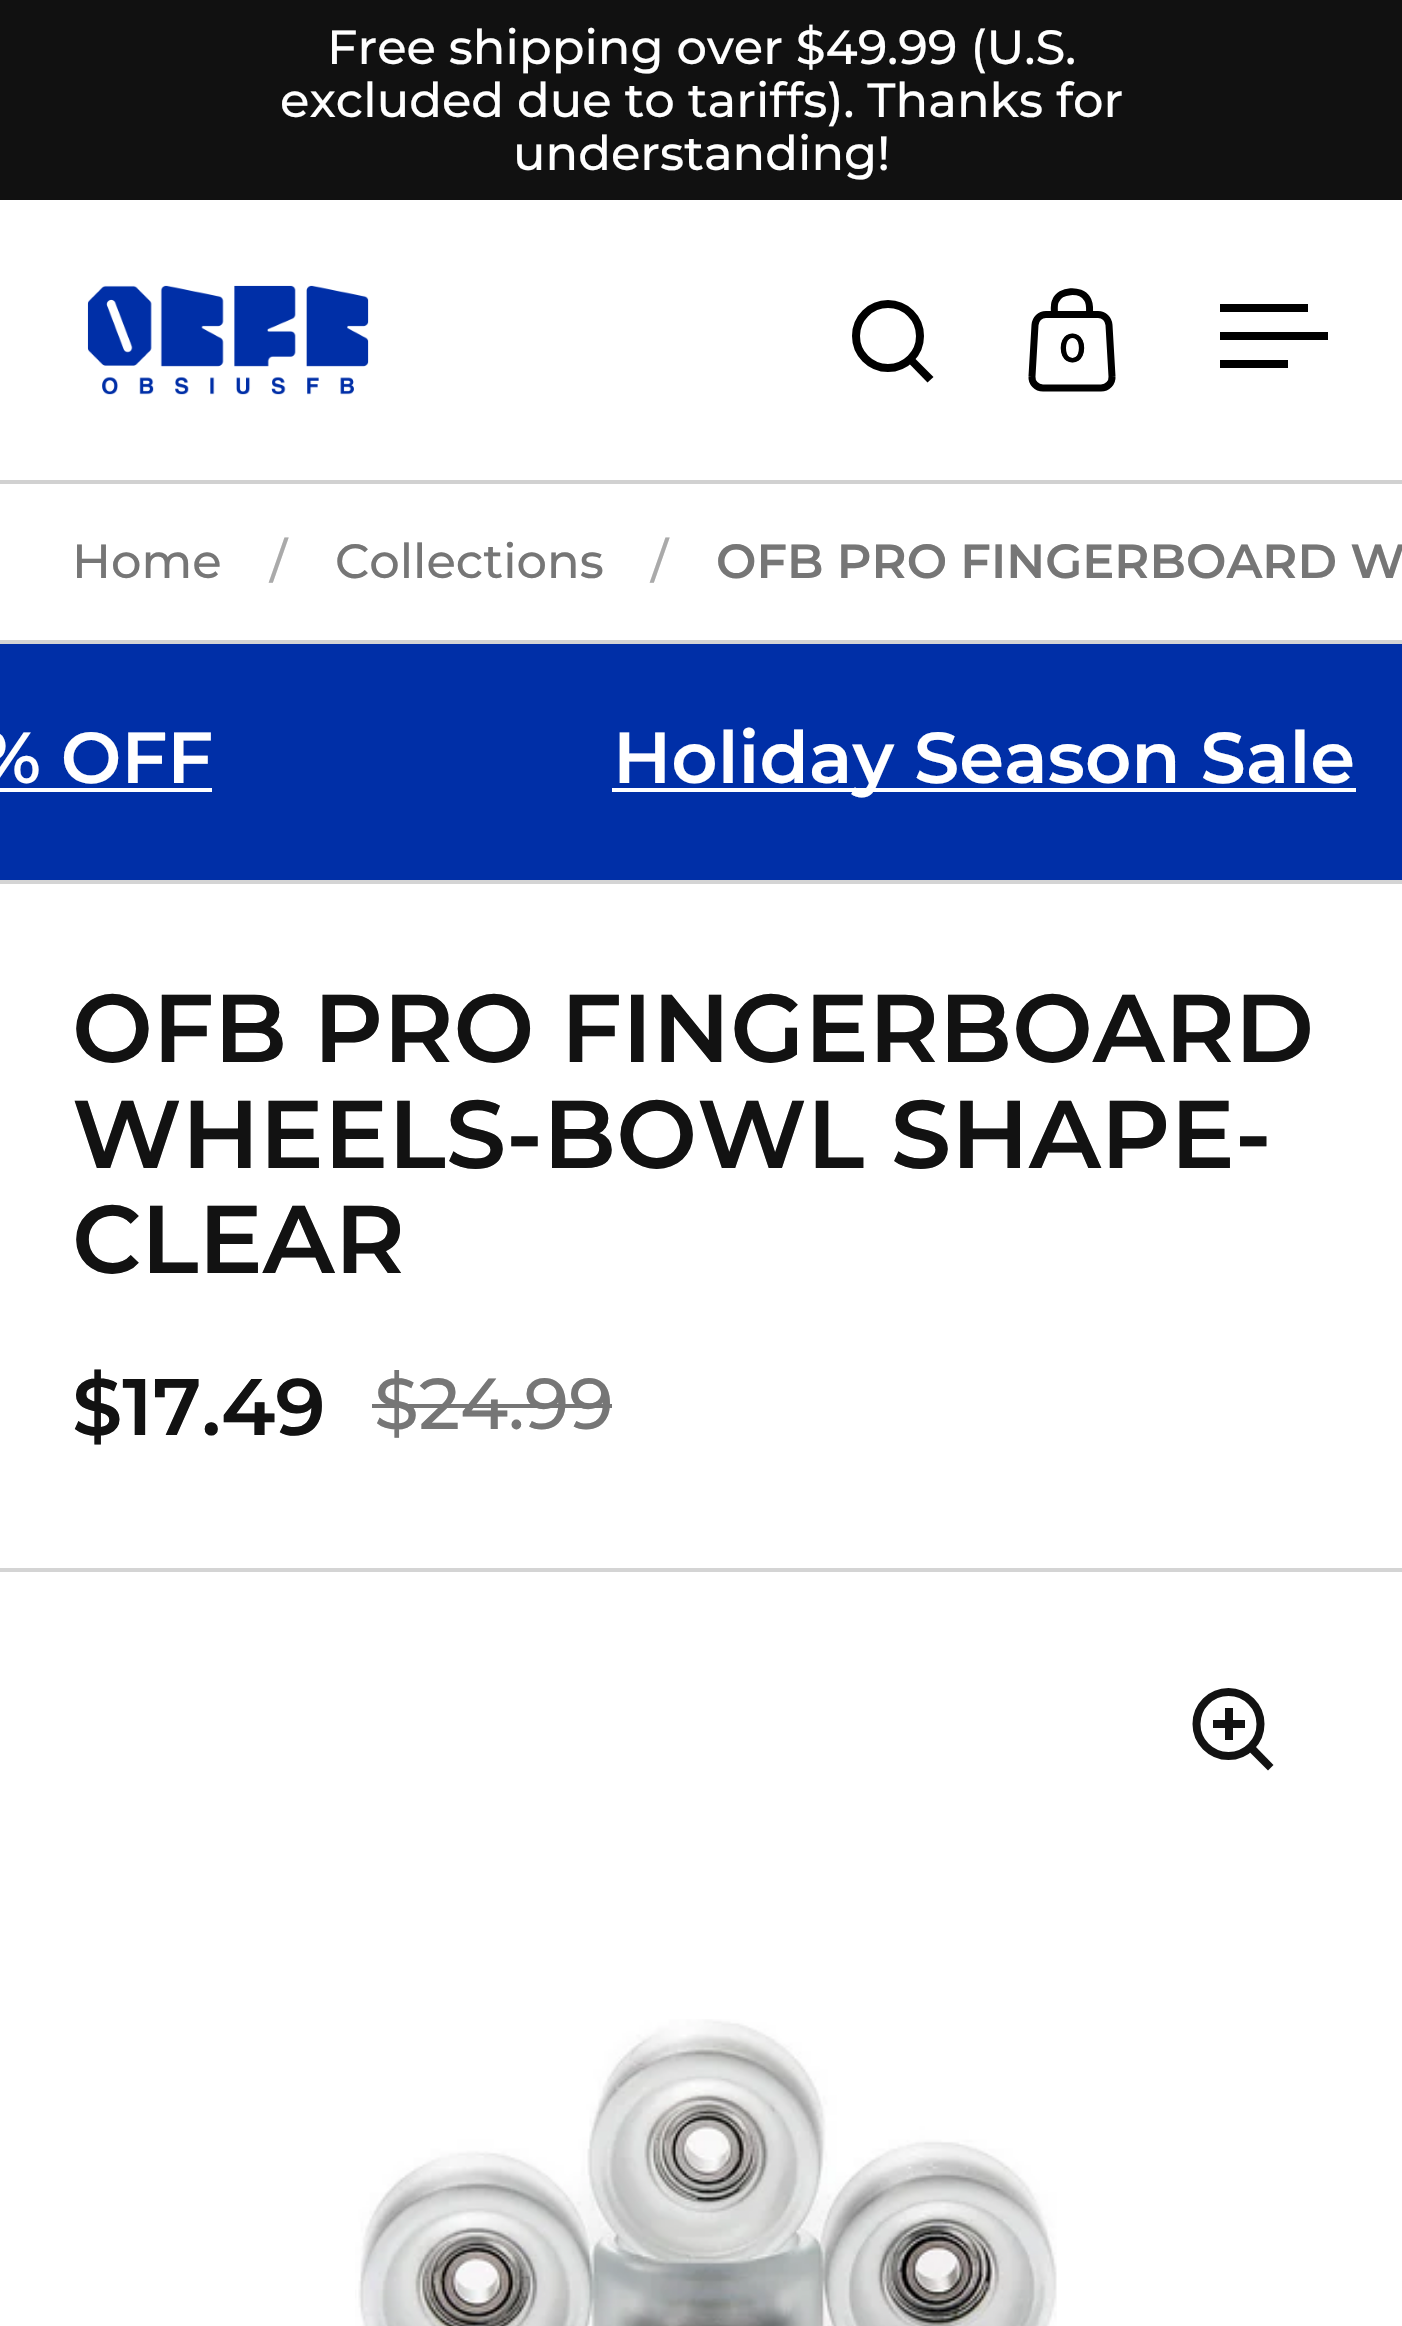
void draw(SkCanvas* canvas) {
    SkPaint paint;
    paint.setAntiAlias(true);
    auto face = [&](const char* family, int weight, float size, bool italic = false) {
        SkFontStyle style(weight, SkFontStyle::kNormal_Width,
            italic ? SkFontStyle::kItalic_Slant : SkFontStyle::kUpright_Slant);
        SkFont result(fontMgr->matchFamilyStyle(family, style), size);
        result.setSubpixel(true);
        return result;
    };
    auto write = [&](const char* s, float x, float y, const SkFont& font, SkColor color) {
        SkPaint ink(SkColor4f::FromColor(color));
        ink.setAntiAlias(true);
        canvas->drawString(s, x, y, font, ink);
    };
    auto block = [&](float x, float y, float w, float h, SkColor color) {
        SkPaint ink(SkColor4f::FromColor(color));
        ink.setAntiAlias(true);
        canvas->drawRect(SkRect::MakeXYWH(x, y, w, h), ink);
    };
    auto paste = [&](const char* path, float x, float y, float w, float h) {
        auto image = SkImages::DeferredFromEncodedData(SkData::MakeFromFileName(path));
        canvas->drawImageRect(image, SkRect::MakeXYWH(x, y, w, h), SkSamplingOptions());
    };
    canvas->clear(SK_ColorWHITE);
    block(0, 0, 1402, 200, SkColorSetRGB(17, 17, 17));
    auto kFont1 = face("Montserrat", 500, 48);
    write("Free shipping over $49.99 (U.S.", 327, 64, kFont1, SK_ColorWHITE);
    write("excluded due to tariffs). Thanks for", 280, 117, kFont1, SK_ColorWHITE);
    write("understanding!", 513, 170, kFont1, SK_ColorWHITE);
    block(0, 480, 1402, 4, SkColorSetRGB(209, 209, 209));
    paste("pic1.png", 87, 285, 282, 110);
    paint.setStyle(SkPaint::kStroke_Style);
    paint.setStrokeWidth(8);
    paint.setColor(SK_ColorBLACK);
    canvas->drawCircle(888, 336, 32, paint);
    paint.setStyle(SkPaint::kFill_Style);
    canvas->drawPath(SkPathBuilder().moveTo(909, 363.5f).lineTo(914.5f, 358).lineTo(933.5f, 377).lineTo(927.5f, 382.5f).close().detach(), paint);
    paint.setStyle(SkPaint::kStroke_Style);
    paint.setStrokeWidth(7);
    canvas->drawPath(SkPathBuilder().moveTo(1054.5f, 314.5f).lineTo(1046, 314.5f).cubicTo(1040, 314.5f, 1035.5f, 319, 1035, 325).lineTo(1032, 376.5f).cubicTo(1031.5f, 382.5f, 1036.5f, 388, 1043, 388).lineTo(1101, 388).cubicTo(1107.5f, 388, 1112.5f, 382.5f, 1112, 376.5f).lineTo(1109, 325).cubicTo(1108.5f, 319, 1104, 314.5f, 1098, 314.5f).lineTo(1089.5f, 314.5f).moveTo(1054.5f, 314.5f).lineTo(1089.5f, 314.5f).moveTo(1054.5f, 314.5f).cubicTo(1054.5f, 310, 1053.5f, 305, 1055.5f, 301).cubicTo(1060, 289.5f, 1080.5f, 288.5f, 1087, 298.5f).cubicTo(1090.5f, 303.5f, 1089.5f, 309, 1089.5f, 314.5f).detach(), paint);
    auto kFont2 = face("Montserrat", 600, 40);
    write("0", 1059, 362, kFont2, SK_ColorBLACK);
    block(1220, 304, 88, 8, SK_ColorBLACK);
    block(1220, 332, 108, 8, SK_ColorBLACK);
    block(1220, 360, 68, 8, SK_ColorBLACK);
    block(0, 640, 1402, 4, SkColorSetRGB(212, 212, 212));
    write("Home", 72, 578, kFont1, SkColorSetRGB(118, 118, 118));
    write("/", 270, 578, kFont1, SkColorSetRGB(170, 170, 170));
    write("Collections", 335, 578, kFont1, SkColorSetRGB(118, 118, 118));
    write("/", 651, 578, kFont1, SkColorSetRGB(170, 170, 170));
    auto kFont3 = face("Montserrat", 600, 48);
    write("OFB PRO FINGERBOARD W", 716, 578, kFont3, SkColorSetRGB(118, 118, 118));
    block(0, 644, 1402, 236, SkColorSetRGB(0, 47, 167));
    auto kFont4 = face("Montserrat", 600, 72);
    write("% OFF", -21, 783, kFont4, SK_ColorWHITE);
    block(0, 788, 212, 4, SK_ColorWHITE);
    block(612, 788, 744, 4, SK_ColorWHITE);
    write("Holiday Season Sale", 613, 783, kFont4, SK_ColorWHITE);
    block(0, 880, 1402, 4, SkColorSetRGB(212, 212, 212));
    auto kFont5 = face("Montserrat", 600, 96);
    write("OFB PRO FINGERBOARD", 72, 1062, kFont5, SkColorSetRGB(18, 18, 18));
    write("WHEELS-BOWL SHAPE-", 72, 1168, kFont5, SkColorSetRGB(18, 18, 18));
    write("CLEAR", 72, 1273, kFont5, SkColorSetRGB(18, 18, 18));
    auto kFont6 = face("Montserrat", 600, 80);
    write("$17.49", 72, 1435, kFont6, SkColorSetRGB(18, 18, 18));
    auto kFont7 = face("Montserrat", 500, 72);
    write("$24.99", 374, 1429, kFont7, SkColorSetRGB(118, 118, 118));
    block(372, 1404, 240, 4, SkColorSetRGB(118, 118, 118));
    block(0, 1568, 1402, 4, SkColorSetRGB(212, 212, 212));
    paint.setStrokeWidth(8);
    paint.setColor(SkColorSetRGB(18, 18, 18));
    canvas->drawCircle(1228.5f, 1724, 32, paint);
    block(1225, 1708, 8, 32, SkColorSetRGB(18, 18, 18));
    block(1213, 1720, 32, 8, SkColorSetRGB(18, 18, 18));
    paint.setStyle(SkPaint::kFill_Style);
    canvas->drawPath(SkPathBuilder().moveTo(1249, 1751.5f).lineTo(1255, 1746).lineTo(1273.5f, 1765).lineTo(1268, 1770.5f).close().detach(), paint);
    paste("pic2.png", 355, 2019, 702, 307);
}
